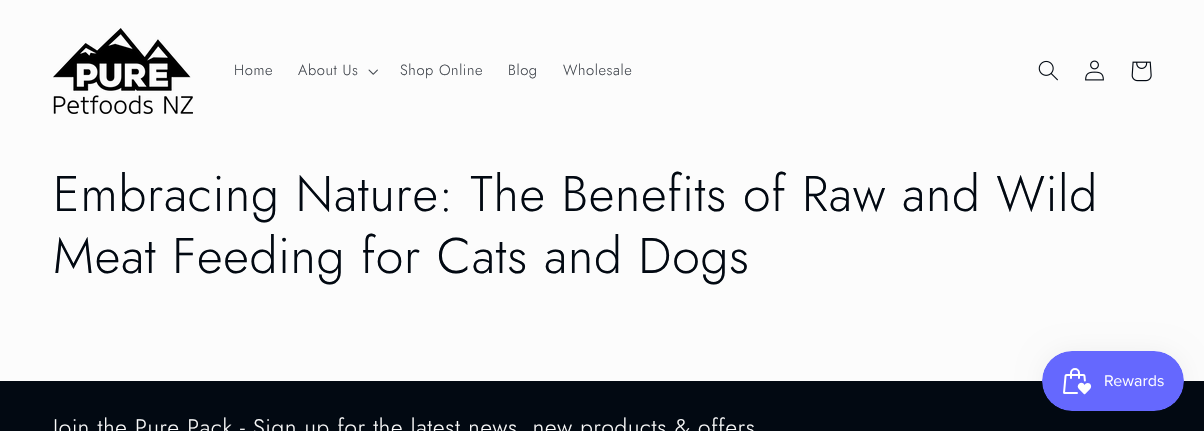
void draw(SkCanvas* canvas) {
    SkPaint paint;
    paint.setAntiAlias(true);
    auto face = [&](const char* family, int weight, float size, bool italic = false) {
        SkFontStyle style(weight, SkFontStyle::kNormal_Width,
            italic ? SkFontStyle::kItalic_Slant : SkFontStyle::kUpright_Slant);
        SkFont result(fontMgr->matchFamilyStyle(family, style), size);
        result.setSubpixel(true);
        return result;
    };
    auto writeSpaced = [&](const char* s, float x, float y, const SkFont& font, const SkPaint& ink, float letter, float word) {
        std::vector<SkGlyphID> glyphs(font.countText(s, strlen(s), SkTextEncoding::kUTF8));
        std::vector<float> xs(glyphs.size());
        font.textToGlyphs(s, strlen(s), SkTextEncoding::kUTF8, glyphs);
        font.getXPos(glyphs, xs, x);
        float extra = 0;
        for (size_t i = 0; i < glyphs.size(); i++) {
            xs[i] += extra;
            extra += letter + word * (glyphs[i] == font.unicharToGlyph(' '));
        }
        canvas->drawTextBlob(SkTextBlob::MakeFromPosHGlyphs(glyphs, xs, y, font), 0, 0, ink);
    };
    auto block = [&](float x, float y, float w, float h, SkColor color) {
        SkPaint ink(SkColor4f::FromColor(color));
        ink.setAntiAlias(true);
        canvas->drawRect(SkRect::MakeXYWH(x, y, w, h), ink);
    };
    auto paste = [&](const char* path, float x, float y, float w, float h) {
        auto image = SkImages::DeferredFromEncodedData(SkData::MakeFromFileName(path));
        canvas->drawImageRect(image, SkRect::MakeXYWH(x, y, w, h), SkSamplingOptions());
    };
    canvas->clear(SkColorSetRGB(252, 252, 252));
    paste("pic1.png", 53, 28, 140, 86);
    auto kFont1 = face("Jost", 300, 14.75f);
    paint.setColor(SkColorSetRGB(65, 70, 77));
    writeSpaced("Home", 234, 75, kFont1, paint, 0.6f, 0);
    writeSpaced("About Us", 298, 75, kFont1, paint, 0.6f, 0);
    paste("pic2.png", 368, 69, 10, 6);
    writeSpaced("Shop Online", 400, 75, kFont1, paint, 0.6f, 0);
    writeSpaced("Blog", 508, 75, kFont1, paint, 0.6f, 0);
    writeSpaced("Wholesale", 563, 75, kFont1, paint, 0.6f, 0);
    paste("pic3.png", 1038, 60, 20, 21);
    paste("pic4.png", 1085, 60, 19, 21);
    paste("pic5.png", 1131, 61, 21, 21);
    auto kFont2 = face("Jost", 300, 50);
    paint.setColor(SkColorSetRGB(2, 9, 18));
    writeSpaced("Embracing Nature: The Benefits of Raw and Wild", 53, 211, kFont2, paint, 0.75f, 0);
    writeSpaced("Meat Feeding for Cats and Dogs", 53, 273, kFont2, paint, 0.75f, 0);
    block(0, 381, 1204, 50, SkColorSetRGB(2, 9, 18));
    auto kFont3 = face("Jost", 300, 22.5f);
    paint.setColor(SkColorSetRGB(252, 252, 252));
    writeSpaced("Join the Pure Pack - Sign up for the latest news, new products & offers", 53, 435, kFont3, paint, 0.75f, 0);
    paint.setColor(SkColorSetARGB(13, 0, 0, 0));
    paint.setMaskFilter(SkMaskFilter::MakeBlur(kNormal_SkBlurStyle, 12.5f));
    canvas->drawRoundRect(SkRect::MakeXYWH(1042, 351, 142, 60), 30, 30, paint);
    paint.setMaskFilter(nullptr);
    paste("pic6.png", 1042, 351, 142, 60);
}
